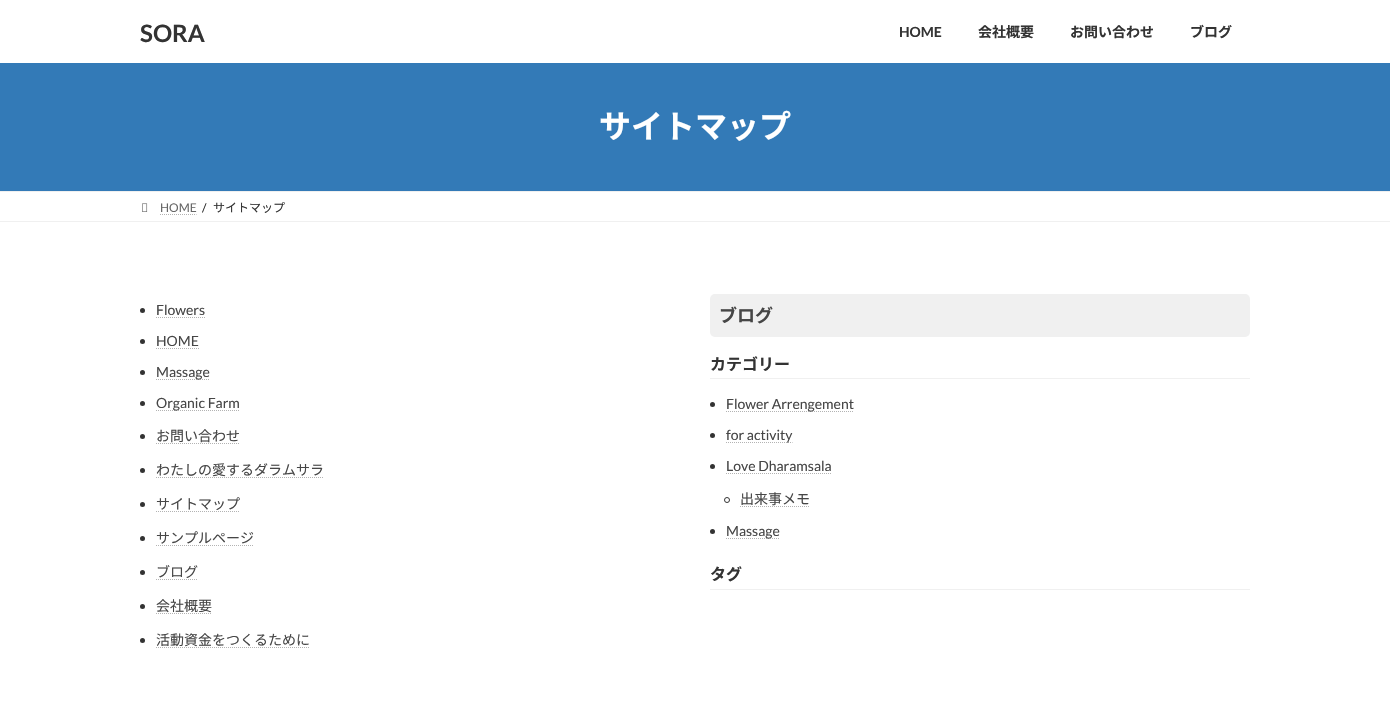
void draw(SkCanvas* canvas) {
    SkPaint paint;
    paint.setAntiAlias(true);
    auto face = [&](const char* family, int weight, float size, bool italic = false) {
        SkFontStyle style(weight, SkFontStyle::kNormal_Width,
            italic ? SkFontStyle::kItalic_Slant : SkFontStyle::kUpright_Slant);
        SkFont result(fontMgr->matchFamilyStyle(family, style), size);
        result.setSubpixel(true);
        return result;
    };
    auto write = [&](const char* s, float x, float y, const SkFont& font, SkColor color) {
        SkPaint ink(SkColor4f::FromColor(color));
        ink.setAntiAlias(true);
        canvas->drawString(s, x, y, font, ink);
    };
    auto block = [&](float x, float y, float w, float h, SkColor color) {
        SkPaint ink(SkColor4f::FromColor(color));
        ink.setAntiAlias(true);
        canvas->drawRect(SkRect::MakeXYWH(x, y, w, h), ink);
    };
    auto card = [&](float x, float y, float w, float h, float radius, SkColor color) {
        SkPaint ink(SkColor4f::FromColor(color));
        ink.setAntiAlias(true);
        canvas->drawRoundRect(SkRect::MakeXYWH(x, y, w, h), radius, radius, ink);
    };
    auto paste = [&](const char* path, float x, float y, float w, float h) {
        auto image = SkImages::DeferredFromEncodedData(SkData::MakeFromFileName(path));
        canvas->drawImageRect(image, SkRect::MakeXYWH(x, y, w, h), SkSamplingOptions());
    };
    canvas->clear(SK_ColorWHITE);
    auto kFont1 = face("Lato", 700, 24);
    write("SORA", 140, 42, kFont1, SkColorSetRGB(51, 51, 51));
    auto kFont2 = face("Lato", 700, 14);
    write("HOME", 899, 37, kFont2, SkColorSetRGB(51, 51, 51));
    auto kFont3 = face("Noto Sans JP", 700, 14);
    write("会社概要", 978, 37, kFont3, SkColorSetRGB(51, 51, 51));
    write("お問い合わせ", 1070, 37, kFont3, SkColorSetRGB(51, 51, 51));
    write("ブログ", 1190, 37, kFont3, SkColorSetRGB(51, 51, 51));
    block(0, 63, 1390, 128, SkColorSetRGB(51, 122, 183));
    auto kFont4 = face("Noto Sans JP", 700, 32);
    write("サイトマップ", 599, 138, kFont4, SK_ColorWHITE);
    block(0, 191, 1390, 1, SkColorSetRGB(240, 240, 240));
    block(0, 221, 1390, 1, SkColorSetRGB(240, 240, 240));
    paste("pic1.png", 142, 203, 6, 9);
    auto kFont5 = face("Lato", 400, 12);
    write("HOME", 160, 212, kFont5, SkColorSetRGB(102, 102, 102));
    paint.setStyle(SkPaint::kStroke_Style);
    paint.setStrokeWidth(1);
    paint.setColor(SkColorSetRGB(179, 179, 179));
    paint.setPathEffect(SkDashPathEffect::Make({{1, 1}}, 0));
    canvas->drawPath(SkPathBuilder().moveTo(160, 214.5f).lineTo(196.5f, 214.5f).detach(), paint);
    paint.setPathEffect(nullptr);
    write("/", 202, 212, kFont5, SkColorSetRGB(51, 51, 51));
    auto kFont6 = face("Noto Sans JP", 400, 12);
    write("サイトマップ", 213, 212, kFont6, SkColorSetRGB(51, 51, 51));
    paint.setStyle(SkPaint::kFill_Style);
    paint.setColor(SkColorSetRGB(51, 51, 51));
    canvas->drawCircle(142.5f, 310.5f, 2.5f, paint);
    auto kFont7 = face("Lato", 400, 14);
    write("Flowers", 156, 315, kFont7, SkColorSetRGB(70, 70, 70));
    paint.setStyle(SkPaint::kStroke_Style);
    paint.setColor(SkColorSetRGB(179, 179, 179));
    paint.setPathEffect(SkDashPathEffect::Make({{1, 1}}, 0));
    canvas->drawPath(SkPathBuilder().moveTo(156, 317.5f).lineTo(205, 317.5f).detach(), paint);
    paint.setPathEffect(nullptr);
    paint.setStyle(SkPaint::kFill_Style);
    paint.setColor(SkColorSetRGB(51, 51, 51));
    canvas->drawCircle(142.5f, 341.5f, 2.5f, paint);
    write("HOME", 156, 346, kFont7, SkColorSetRGB(70, 70, 70));
    paint.setStyle(SkPaint::kStroke_Style);
    paint.setColor(SkColorSetRGB(179, 179, 179));
    paint.setPathEffect(SkDashPathEffect::Make({{1, 1}}, 0));
    canvas->drawPath(SkPathBuilder().moveTo(156, 348.5f).lineTo(199, 348.5f).detach(), paint);
    paint.setPathEffect(nullptr);
    paint.setStyle(SkPaint::kFill_Style);
    paint.setColor(SkColorSetRGB(51, 51, 51));
    canvas->drawCircle(142.5f, 372.5f, 2.5f, paint);
    paint.setStyle(SkPaint::kStroke_Style);
    paint.setColor(SkColorSetRGB(179, 179, 179));
    paint.setPathEffect(SkDashPathEffect::Make({{1, 1}}, 0));
    canvas->drawPath(SkPathBuilder().moveTo(156, 379.5f).lineTo(209.5f, 379.5f).detach(), paint);
    paint.setPathEffect(nullptr);
    write("Massage", 156, 377, kFont7, SkColorSetRGB(70, 70, 70));
    paint.setStyle(SkPaint::kFill_Style);
    paint.setColor(SkColorSetRGB(51, 51, 51));
    canvas->drawCircle(142.5f, 403.5f, 2.5f, paint);
    paint.setStyle(SkPaint::kStroke_Style);
    paint.setColor(SkColorSetRGB(179, 179, 179));
    paint.setPathEffect(SkDashPathEffect::Make({{1, 1}}, 0));
    canvas->drawPath(SkPathBuilder().moveTo(156, 410.5f).lineTo(240, 410.5f).detach(), paint);
    paint.setPathEffect(nullptr);
    write("Organic Farm", 156, 408, kFont7, SkColorSetRGB(70, 70, 70));
    paint.setStyle(SkPaint::kFill_Style);
    paint.setColor(SkColorSetRGB(51, 51, 51));
    canvas->drawCircle(142.5f, 436.5f, 2.5f, paint);
    auto kFont8 = face("Noto Sans JP", 400, 14);
    write("お問い合わせ", 156, 441, kFont8, SkColorSetRGB(70, 70, 70));
    paint.setStyle(SkPaint::kStroke_Style);
    paint.setColor(SkColorSetRGB(179, 179, 179));
    paint.setPathEffect(SkDashPathEffect::Make({{1, 1}}, 0));
    canvas->drawPath(SkPathBuilder().moveTo(156, 443.5f).lineTo(240, 443.5f).detach(), paint);
    paint.setPathEffect(nullptr);
    paint.setStyle(SkPaint::kFill_Style);
    paint.setColor(SkColorSetRGB(51, 51, 51));
    canvas->drawCircle(142.5f, 470.5f, 2.5f, paint);
    write("わたしの愛するダラムサラ", 156, 475, kFont8, SkColorSetRGB(70, 70, 70));
    paint.setStyle(SkPaint::kStroke_Style);
    paint.setColor(SkColorSetRGB(179, 179, 179));
    paint.setPathEffect(SkDashPathEffect::Make({{1, 1}}, 0));
    canvas->drawPath(SkPathBuilder().moveTo(156, 477.5f).lineTo(324, 477.5f).detach(), paint);
    paint.setPathEffect(nullptr);
    paint.setStyle(SkPaint::kFill_Style);
    paint.setColor(SkColorSetRGB(51, 51, 51));
    canvas->drawCircle(142.5f, 504.5f, 2.5f, paint);
    write("サイトマップ", 156, 509, kFont8, SkColorSetRGB(70, 70, 70));
    paint.setStyle(SkPaint::kStroke_Style);
    paint.setColor(SkColorSetRGB(179, 179, 179));
    paint.setPathEffect(SkDashPathEffect::Make({{1, 1}}, 0));
    canvas->drawPath(SkPathBuilder().moveTo(156, 511.5f).lineTo(240, 511.5f).detach(), paint);
    paint.setPathEffect(nullptr);
    paint.setStyle(SkPaint::kFill_Style);
    paint.setColor(SkColorSetRGB(51, 51, 51));
    canvas->drawCircle(142.5f, 538.5f, 2.5f, paint);
    write("サンプルページ", 156, 543, kFont8, SkColorSetRGB(70, 70, 70));
    paint.setStyle(SkPaint::kStroke_Style);
    paint.setColor(SkColorSetRGB(179, 179, 179));
    paint.setPathEffect(SkDashPathEffect::Make({{1, 1}}, 0));
    canvas->drawPath(SkPathBuilder().moveTo(156, 545.5f).lineTo(254, 545.5f).detach(), paint);
    paint.setPathEffect(nullptr);
    paint.setStyle(SkPaint::kFill_Style);
    paint.setColor(SkColorSetRGB(51, 51, 51));
    canvas->drawCircle(142.5f, 572.5f, 2.5f, paint);
    write("ブログ", 156, 577, kFont8, SkColorSetRGB(70, 70, 70));
    paint.setStyle(SkPaint::kStroke_Style);
    paint.setColor(SkColorSetRGB(179, 179, 179));
    paint.setPathEffect(SkDashPathEffect::Make({{1, 1}}, 0));
    canvas->drawPath(SkPathBuilder().moveTo(156, 579.5f).lineTo(198, 579.5f).detach(), paint);
    paint.setPathEffect(nullptr);
    paint.setStyle(SkPaint::kFill_Style);
    paint.setColor(SkColorSetRGB(51, 51, 51));
    canvas->drawCircle(142.5f, 606.5f, 2.5f, paint);
    write("会社概要", 156, 611, kFont8, SkColorSetRGB(70, 70, 70));
    paint.setStyle(SkPaint::kStroke_Style);
    paint.setColor(SkColorSetRGB(179, 179, 179));
    paint.setPathEffect(SkDashPathEffect::Make({{1, 1}}, 0));
    canvas->drawPath(SkPathBuilder().moveTo(156, 613.5f).lineTo(212, 613.5f).detach(), paint);
    paint.setPathEffect(nullptr);
    paint.setStyle(SkPaint::kFill_Style);
    paint.setColor(SkColorSetRGB(51, 51, 51));
    canvas->drawCircle(142.5f, 640.5f, 2.5f, paint);
    write("活動資金をつくるために", 156, 645, kFont8, SkColorSetRGB(70, 70, 70));
    paint.setStyle(SkPaint::kStroke_Style);
    paint.setColor(SkColorSetRGB(179, 179, 179));
    paint.setPathEffect(SkDashPathEffect::Make({{1, 1}}, 0));
    canvas->drawPath(SkPathBuilder().moveTo(156, 647.5f).lineTo(310, 647.5f).detach(), paint);
    paint.setPathEffect(nullptr);
    card(710, 294, 540, 43, 5, SkColorSetRGB(240, 240, 240));
    auto kFont9 = face("Noto Sans JP", 700, 18);
    write("ブログ", 719, 322, kFont9, SkColorSetRGB(70, 70, 70));
    block(710, 378, 540, 1, SkColorSetRGB(240, 240, 240));
    auto kFont10 = face("Noto Sans JP", 700, 16);
    write("カテゴリー", 710, 370, kFont10, SkColorSetRGB(51, 51, 51));
    paint.setStyle(SkPaint::kFill_Style);
    paint.setColor(SkColorSetRGB(51, 51, 51));
    canvas->drawCircle(712.5f, 404.5f, 2.5f, paint);
    paint.setStyle(SkPaint::kStroke_Style);
    paint.setColor(SkColorSetRGB(179, 179, 179));
    paint.setPathEffect(SkDashPathEffect::Make({{1, 1}}, 0));
    canvas->drawPath(SkPathBuilder().moveTo(726, 411.5f).lineTo(854, 411.5f).detach(), paint);
    paint.setPathEffect(nullptr);
    write("Flower Arrengement", 726, 409, kFont7, SkColorSetRGB(70, 70, 70));
    paint.setStyle(SkPaint::kFill_Style);
    paint.setColor(SkColorSetRGB(51, 51, 51));
    canvas->drawCircle(712.5f, 435.5f, 2.5f, paint);
    paint.setStyle(SkPaint::kStroke_Style);
    paint.setColor(SkColorSetRGB(179, 179, 179));
    paint.setPathEffect(SkDashPathEffect::Make({{1, 1}}, 0));
    canvas->drawPath(SkPathBuilder().moveTo(726, 442.5f).lineTo(792.5f, 442.5f).detach(), paint);
    paint.setPathEffect(nullptr);
    write("for activity", 726, 440, kFont7, SkColorSetRGB(70, 70, 70));
    paint.setStyle(SkPaint::kFill_Style);
    paint.setColor(SkColorSetRGB(51, 51, 51));
    canvas->drawCircle(712.5f, 466.5f, 2.5f, paint);
    write("Love Dharamsala", 726, 471, kFont7, SkColorSetRGB(70, 70, 70));
    paint.setStyle(SkPaint::kStroke_Style);
    paint.setColor(SkColorSetRGB(179, 179, 179));
    paint.setPathEffect(SkDashPathEffect::Make({{1, 1}}, 0));
    canvas->drawPath(SkPathBuilder().moveTo(726, 473.5f).lineTo(831.5f, 473.5f).detach(), paint);
    paint.setPathEffect(nullptr);
    paint.setColor(SkColorSetRGB(51, 51, 51));
    canvas->drawCircle(727, 500, 2.5f, paint);
    write("出来事メモ", 740, 504, kFont8, SkColorSetRGB(70, 70, 70));
    paint.setColor(SkColorSetRGB(179, 179, 179));
    paint.setPathEffect(SkDashPathEffect::Make({{1, 1}}, 0));
    canvas->drawPath(SkPathBuilder().moveTo(740, 506.5f).lineTo(810, 506.5f).detach(), paint);
    paint.setPathEffect(nullptr);
    paint.setStyle(SkPaint::kFill_Style);
    paint.setColor(SkColorSetRGB(51, 51, 51));
    canvas->drawCircle(712.5f, 531.5f, 2.5f, paint);
    paint.setStyle(SkPaint::kStroke_Style);
    paint.setColor(SkColorSetRGB(179, 179, 179));
    paint.setPathEffect(SkDashPathEffect::Make({{1, 1}}, 0));
    canvas->drawPath(SkPathBuilder().moveTo(726, 538.5f).lineTo(779.5f, 538.5f).detach(), paint);
    paint.setPathEffect(nullptr);
    write("Massage", 726, 536, kFont7, SkColorSetRGB(70, 70, 70));
    block(710, 589, 540, 1, SkColorSetRGB(240, 240, 240));
    write("タグ", 710, 580, kFont10, SkColorSetRGB(51, 51, 51));
}
